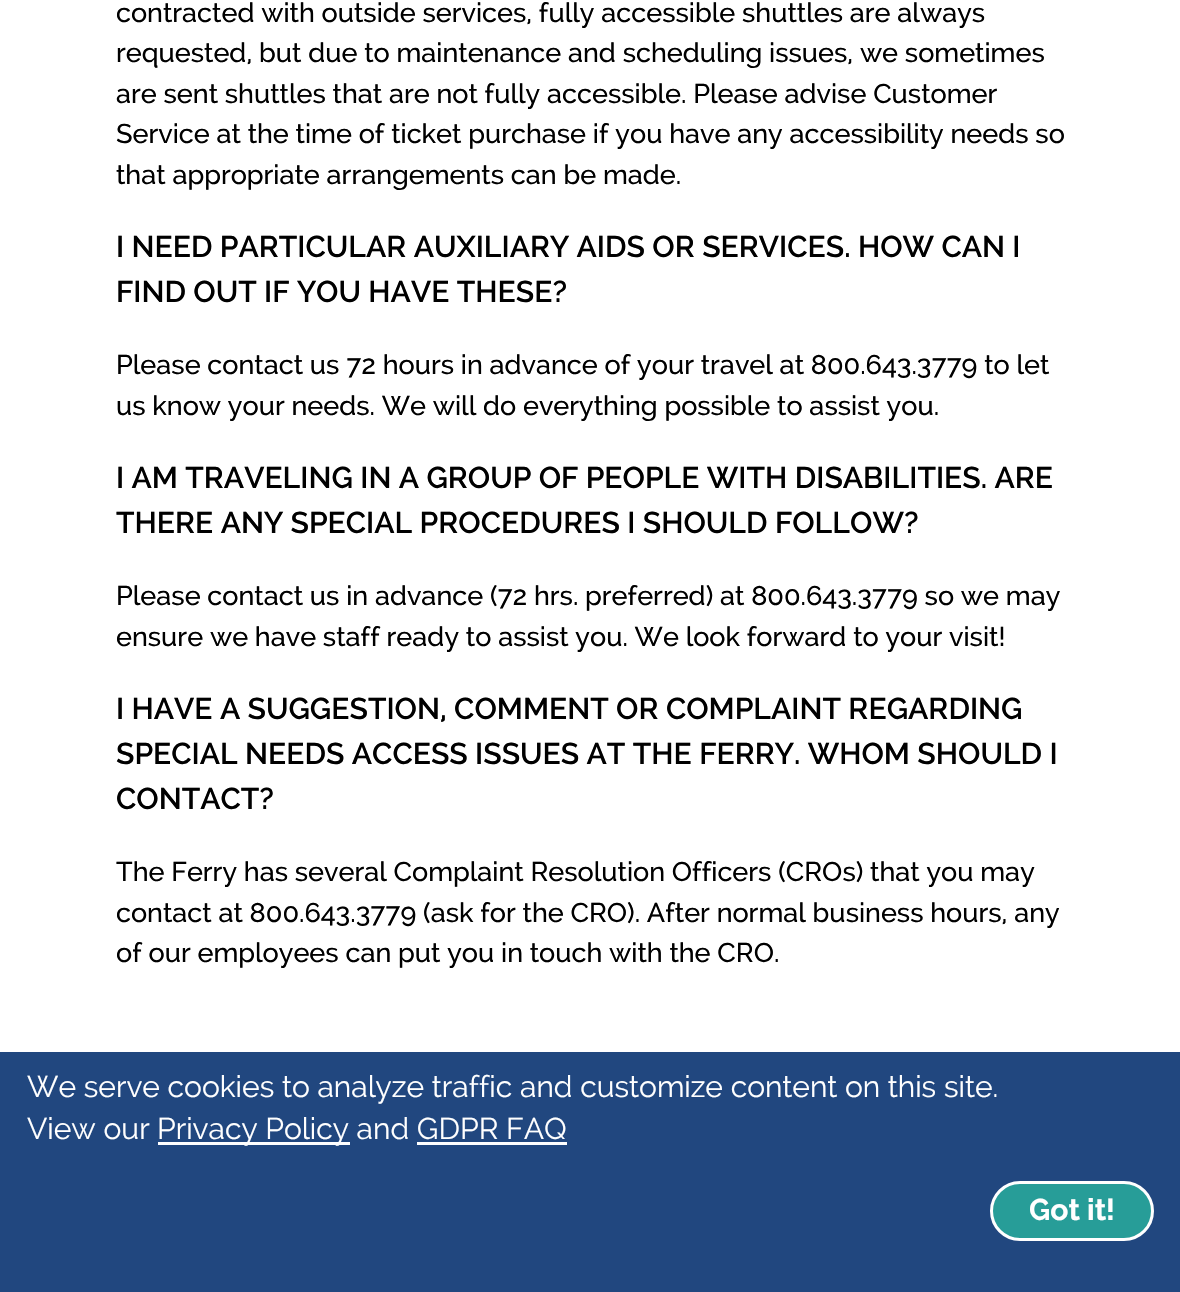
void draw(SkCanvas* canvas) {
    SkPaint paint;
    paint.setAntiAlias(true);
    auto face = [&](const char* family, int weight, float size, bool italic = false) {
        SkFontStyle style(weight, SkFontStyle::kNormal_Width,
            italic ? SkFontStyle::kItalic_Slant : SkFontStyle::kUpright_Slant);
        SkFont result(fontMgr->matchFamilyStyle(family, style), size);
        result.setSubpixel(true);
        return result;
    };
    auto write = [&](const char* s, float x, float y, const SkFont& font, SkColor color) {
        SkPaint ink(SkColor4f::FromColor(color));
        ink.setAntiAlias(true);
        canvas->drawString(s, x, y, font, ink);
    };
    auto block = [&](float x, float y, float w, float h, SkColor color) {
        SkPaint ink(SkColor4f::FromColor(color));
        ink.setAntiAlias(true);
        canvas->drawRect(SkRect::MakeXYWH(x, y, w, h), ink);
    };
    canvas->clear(SK_ColorWHITE);
    auto kFont1 = face("Raleway", 500, 27);
    write("contracted with outside services, fully accessible shuttles are always", 116, 22, kFont1, SK_ColorBLACK);
    write("requested, but due to maintenance and scheduling issues, we sometimes", 116, 62, kFont1, SK_ColorBLACK);
    write("are sent shuttles that are not fully accessible. Please advise Customer", 116, 103, kFont1, SK_ColorBLACK);
    write("Service at the time of ticket purchase if you have any accessibility needs so", 116, 143, kFont1, SK_ColorBLACK);
    write("that appropriate arrangements can be made.", 116, 184, kFont1, SK_ColorBLACK);
    auto kFont2 = face("Raleway", 600, 30);
    write("I NEED PARTICULAR AUXILIARY AIDS OR SERVICES. HOW CAN I", 116, 257, kFont2, SK_ColorBLACK);
    write("FIND OUT IF YOU HAVE THESE?", 116, 302, kFont2, SK_ColorBLACK);
    write("Please contact us 72 hours in advance of your travel at 800.643.3779 to let", 116, 374, kFont1, SK_ColorBLACK);
    write("us know your needs. We will do everything possible to assist you.", 116, 415, kFont1, SK_ColorBLACK);
    write("I AM TRAVELING IN A GROUP OF PEOPLE WITH DISABILITIES. ARE", 116, 488, kFont2, SK_ColorBLACK);
    write("THERE ANY SPECIAL PROCEDURES I SHOULD FOLLOW?", 116, 533, kFont2, SK_ColorBLACK);
    write("Please contact us in advance (72 hrs. preferred) at 800.643.3779 so we may", 116, 605, kFont1, SK_ColorBLACK);
    write("ensure we have staff ready to assist you. We look forward to your visit!", 116, 646, kFont1, SK_ColorBLACK);
    write("I HAVE A SUGGESTION, COMMENT OR COMPLAINT REGARDING", 116, 719, kFont2, SK_ColorBLACK);
    write("SPECIAL NEEDS ACCESS ISSUES AT THE FERRY. WHOM SHOULD I", 116, 764, kFont2, SK_ColorBLACK);
    write("CONTACT?", 116, 809, kFont2, SK_ColorBLACK);
    write("The Ferry has several Complaint Resolution Officers (CROs) that you may", 116, 881, kFont1, SK_ColorBLACK);
    write("contact at 800.643.3779 (ask for the CRO). After normal business hours, any", 116, 922, kFont1, SK_ColorBLACK);
    write("of our employees can put you in touch with the CRO.", 116, 962, kFont1, SK_ColorBLACK);
    block(0, 1052, 1180, 240, SkColorSetRGB(33, 71, 127));
    auto kFont3 = face("Raleway", 400, 30);
    write("We serve cookies to analyze traffic and customize content on this site.", 27, 1097, kFont3, SK_ColorWHITE);
    write("View our", 27, 1139, kFont3, SK_ColorWHITE);
    block(158, 1142, 192, 3, SK_ColorWHITE);
    write("Privacy Policy and GDPR FAQ", 157, 1139, kFont3, SK_ColorWHITE);
    block(417, 1142, 150, 3, SK_ColorWHITE);
    paint.setColor(SkColorSetRGB(39, 157, 152));
    canvas->drawRoundRect(SkRect::MakeXYWH(991.5f, 1182.5f, 161, 57), 28.5f, 28.5f, paint);
    paint.setStyle(SkPaint::kStroke_Style);
    paint.setStrokeWidth(3);
    paint.setColor(SK_ColorWHITE);
    canvas->drawRoundRect(SkRect::MakeXYWH(991.5f, 1182.5f, 161, 57), 28.5f, 28.5f, paint);
    auto kFont4 = face("Raleway", 700, 30);
    write("Got it!", 1029, 1220, kFont4, SK_ColorWHITE);
}
